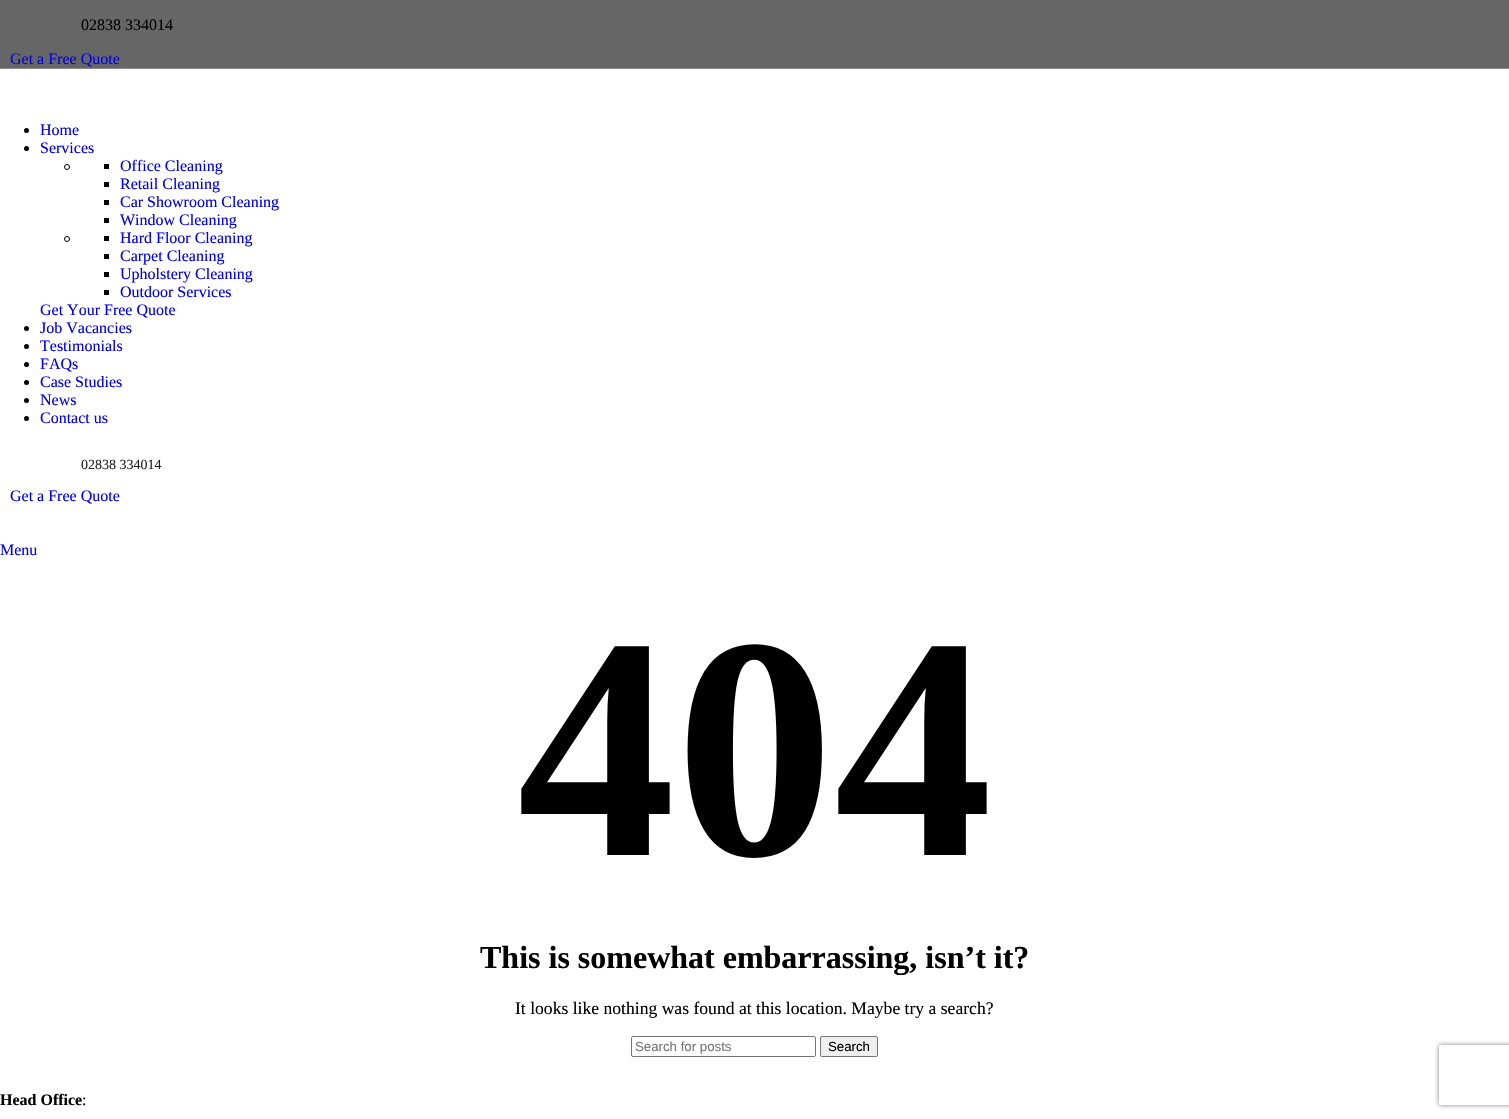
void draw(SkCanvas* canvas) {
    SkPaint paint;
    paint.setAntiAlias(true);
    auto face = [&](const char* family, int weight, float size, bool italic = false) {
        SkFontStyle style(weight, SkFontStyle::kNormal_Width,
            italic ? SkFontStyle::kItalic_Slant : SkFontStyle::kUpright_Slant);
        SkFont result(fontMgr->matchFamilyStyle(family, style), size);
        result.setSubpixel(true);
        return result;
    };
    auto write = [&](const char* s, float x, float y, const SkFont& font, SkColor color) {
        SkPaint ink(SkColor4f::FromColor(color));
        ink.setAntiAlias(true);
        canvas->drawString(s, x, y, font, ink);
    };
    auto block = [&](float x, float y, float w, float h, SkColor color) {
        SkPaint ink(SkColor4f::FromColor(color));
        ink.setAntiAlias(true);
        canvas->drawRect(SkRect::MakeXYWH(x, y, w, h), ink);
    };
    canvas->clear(SK_ColorWHITE);
    block(0, 0, 1509, 68, SkColorSetRGB(102, 102, 102));
    block(0, 68, 1509, 1, SkColorSetRGB(140, 140, 140));
    auto kFont1 = face("Liberation Serif", 400, 16);
    write("02838 334014", 81, 30, kFont1, SK_ColorBLACK);
    write("Get a Free Quote", 10, 64, kFont1, SkColorSetRGB(0, 0, 238));
    paint.setColor(SK_ColorBLACK);
    canvas->drawCircle(26.5f, 130.5f, 2.5f, paint);
    write("Home", 40, 135, kFont1, SkColorSetRGB(0, 0, 238));
    canvas->drawCircle(26.5f, 148.5f, 2.5f, paint);
    write("Services", 40, 153, kFont1, SkColorSetRGB(0, 0, 238));
    paint.setStyle(SkPaint::kStroke_Style);
    paint.setStrokeWidth(1);
    canvas->drawCircle(67, 167, 2.5f, paint);
    block(104, 164, 5, 5, SK_ColorBLACK);
    write("Office Cleaning", 120, 171, kFont1, SkColorSetRGB(0, 0, 238));
    block(104, 182, 5, 5, SK_ColorBLACK);
    write("Retail Cleaning", 120, 189, kFont1, SkColorSetRGB(0, 0, 238));
    block(104, 200, 5, 5, SK_ColorBLACK);
    write("Car Showroom Cleaning", 120, 207, kFont1, SkColorSetRGB(0, 0, 238));
    block(104, 218, 5, 5, SK_ColorBLACK);
    write("Window Cleaning", 120, 225, kFont1, SkColorSetRGB(0, 0, 238));
    canvas->drawCircle(67, 239, 2.5f, paint);
    block(104, 236, 5, 5, SK_ColorBLACK);
    write("Hard Floor Cleaning", 120, 243, kFont1, SkColorSetRGB(0, 0, 238));
    block(104, 254, 5, 5, SK_ColorBLACK);
    write("Carpet Cleaning", 120, 261, kFont1, SkColorSetRGB(0, 0, 238));
    block(104, 272, 5, 5, SK_ColorBLACK);
    write("Upholstery Cleaning", 120, 279, kFont1, SkColorSetRGB(0, 0, 238));
    block(104, 290, 5, 5, SK_ColorBLACK);
    write("Outdoor Services", 120, 297, kFont1, SkColorSetRGB(0, 0, 238));
    write("Get Your Free Quote", 40, 315, kFont1, SkColorSetRGB(0, 0, 238));
    paint.setStyle(SkPaint::kFill_Style);
    canvas->drawCircle(26.5f, 328.5f, 2.5f, paint);
    write("Job Vacancies", 40, 333, kFont1, SkColorSetRGB(0, 0, 238));
    canvas->drawCircle(26.5f, 346.5f, 2.5f, paint);
    write("Testimonials", 40, 351, kFont1, SkColorSetRGB(0, 0, 238));
    canvas->drawCircle(26.5f, 364.5f, 2.5f, paint);
    write("FAQs", 40, 369, kFont1, SkColorSetRGB(0, 0, 238));
    canvas->drawCircle(26.5f, 382.5f, 2.5f, paint);
    write("Case Studies", 40, 387, kFont1, SkColorSetRGB(0, 0, 238));
    canvas->drawCircle(26.5f, 400.5f, 2.5f, paint);
    write("News", 40, 405, kFont1, SkColorSetRGB(0, 0, 238));
    canvas->drawCircle(26.5f, 418.5f, 2.5f, paint);
    write("Contact us", 40, 423, kFont1, SkColorSetRGB(0, 0, 238));
    auto kFont2 = face("Liberation Serif", 400, 14);
    write("02838 334014", 81, 469, kFont2, SkColorSetRGB(36, 36, 36));
    write("Get a Free Quote", 10, 501, kFont1, SkColorSetRGB(0, 0, 238));
    write("Menu", 0, 555, kFont1, SkColorSetRGB(0, 0, 238));
    auto kFont3 = face("Liberation Serif", 700, 317);
    write("404", 517, 855, kFont3, SK_ColorBLACK);
    auto kFont4 = face("Liberation Serif", 700, 32);
    write("This is somewhat embarrassing, isn’t it?", 480, 968, kFont4, SK_ColorBLACK);
    auto kFont5 = face("Liberation Serif", 400, 17.6f);
    write("It looks like nothing was found at this location. Maybe try a search?", 515, 1014, kFont5, SK_ColorBLACK);
    paint.setStyle(SkPaint::kStroke_Style);
    paint.setColor(SkColorSetRGB(118, 118, 118));
    canvas->drawRoundRect(SkRect::MakeXYWH(631.5f, 1036.5f, 184, 20), 1.5f, 1.5f, paint);
    auto kFont6 = face("Liberation Sans", 400, 13.25f);
    write("Search for posts", 635, 1051, kFont6, SkColorSetRGB(117, 117, 117));
    paint.setStyle(SkPaint::kFill_Style);
    paint.setColor(SkColorSetRGB(239, 239, 239));
    canvas->drawRoundRect(SkRect::MakeXYWH(820.5f, 1036.5f, 57, 20), 1.5f, 1.5f, paint);
    paint.setStyle(SkPaint::kStroke_Style);
    paint.setColor(SkColorSetRGB(118, 118, 118));
    canvas->drawRoundRect(SkRect::MakeXYWH(820.5f, 1036.5f, 57, 20), 1.5f, 1.5f, paint);
    write("Search", 828, 1051, kFont6, SK_ColorBLACK);
    auto kFont7 = face("Liberation Serif", 700, 16);
    write("Head Office", 0, 1105, kFont7, SK_ColorBLACK);
    write(":", 82, 1105, kFont1, SK_ColorBLACK);
    canvas->save();
    canvas->clipPath(SkPathBuilder(SkPathFillType::kEvenOdd).moveTo(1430, 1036).lineTo(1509, 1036).lineTo(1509, 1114).lineTo(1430, 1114).close().moveTo(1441, 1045).lineTo(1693, 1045).cubicTo(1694, 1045, 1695, 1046, 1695, 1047).lineTo(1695, 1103).cubicTo(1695, 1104, 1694, 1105, 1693, 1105).lineTo(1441, 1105).cubicTo(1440, 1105, 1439, 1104, 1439, 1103).lineTo(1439, 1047).cubicTo(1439, 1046, 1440, 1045, 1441, 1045).close().detach(), true);
    paint.setStyle(SkPaint::kFill_Style);
    paint.setColor(SkColorSetRGB(128, 128, 128));
    paint.setMaskFilter(SkMaskFilter::MakeBlur(kNormal_SkBlurStyle, 2.5f));
    canvas->drawRoundRect(SkRect::MakeXYWH(1439, 1045, 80, 60), 2, 2, paint);
    paint.setMaskFilter(nullptr);
    canvas->restore();
}
